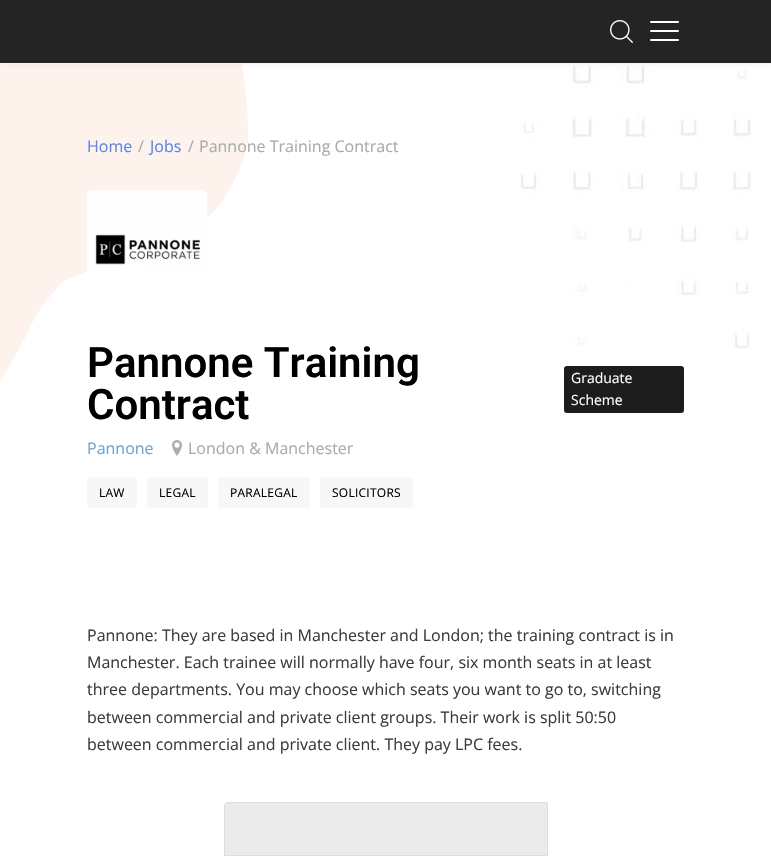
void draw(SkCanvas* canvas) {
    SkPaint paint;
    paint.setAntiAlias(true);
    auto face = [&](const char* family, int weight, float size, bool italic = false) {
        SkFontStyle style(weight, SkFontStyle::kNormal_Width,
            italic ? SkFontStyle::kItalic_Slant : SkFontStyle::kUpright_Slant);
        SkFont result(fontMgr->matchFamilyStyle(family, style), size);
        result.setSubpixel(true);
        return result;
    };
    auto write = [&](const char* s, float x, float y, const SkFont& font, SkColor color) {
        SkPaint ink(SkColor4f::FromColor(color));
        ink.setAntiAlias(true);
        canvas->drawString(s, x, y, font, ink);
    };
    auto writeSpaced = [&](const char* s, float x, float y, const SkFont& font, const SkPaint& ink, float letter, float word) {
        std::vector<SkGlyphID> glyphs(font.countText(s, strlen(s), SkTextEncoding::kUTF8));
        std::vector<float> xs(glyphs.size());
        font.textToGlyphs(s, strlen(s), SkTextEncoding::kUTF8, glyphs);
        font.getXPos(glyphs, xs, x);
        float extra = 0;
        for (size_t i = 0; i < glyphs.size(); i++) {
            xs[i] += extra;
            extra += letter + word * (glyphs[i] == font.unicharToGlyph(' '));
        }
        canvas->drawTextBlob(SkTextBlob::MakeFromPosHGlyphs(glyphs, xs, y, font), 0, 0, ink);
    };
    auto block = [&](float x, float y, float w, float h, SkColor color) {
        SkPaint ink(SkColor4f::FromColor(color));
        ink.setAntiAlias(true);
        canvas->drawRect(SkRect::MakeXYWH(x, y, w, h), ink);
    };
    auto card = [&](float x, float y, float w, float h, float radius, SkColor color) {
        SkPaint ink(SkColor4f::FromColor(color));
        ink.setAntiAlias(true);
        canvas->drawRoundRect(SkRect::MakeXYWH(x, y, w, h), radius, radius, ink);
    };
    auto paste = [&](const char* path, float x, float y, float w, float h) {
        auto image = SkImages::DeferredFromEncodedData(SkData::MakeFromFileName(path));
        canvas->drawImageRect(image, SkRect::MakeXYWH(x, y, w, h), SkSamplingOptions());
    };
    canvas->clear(SK_ColorWHITE);
    paste("pic2.png", 0, 64, 248, 317);
    paste("pic3.png", 520, 65, 232, 284);
    paint.setColor(SkColorSetARGB(18, 102, 102, 102));
    paint.setMaskFilter(SkMaskFilter::MakeBlur(kNormal_SkBlurStyle, 2));
    canvas->drawRect(SkRect::MakeXYWH(1, 1, 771, 64), paint);
    paint.setMaskFilter(nullptr);
    block(0, 0, 771, 63, SkColorSetRGB(36, 36, 36));
    block(0, 63, 771, 1, SkColorSetRGB(243, 243, 243));
    paste("pic1.png", 610, 20, 23, 23);
    card(650, 21, 29, 2, 1, SK_ColorWHITE);
    card(650, 30, 29, 2, 1, SK_ColorWHITE);
    card(650, 39, 29, 2, 1, SK_ColorWHITE);
    auto kFont1 = face("Open Sans", 400, 16);
    write("Home", 87, 152, kFont1, SkColorSetRGB(87, 134, 236));
    write("/", 138, 152, kFont1, SkColorSetRGB(170, 170, 170));
    write("Jobs", 150, 152, kFont1, SkColorSetRGB(87, 134, 236));
    write("/", 188, 152, kFont1, SkColorSetRGB(170, 170, 170));
    write("Pannone Training Contract", 199, 152, kFont1, SkColorSetRGB(170, 170, 170));
    paste("pic4.png", 87, 190, 120, 82);
    auto kFont2 = face("Roboto", 600, 42);
    write("Pannone Training", 87, 377, kFont2, SK_ColorBLACK);
    write("Contract", 87, 419, kFont2, SK_ColorBLACK);
    card(564, 366, 120, 47, 3, SkColorSetRGB(29, 29, 29));
    auto kFont3 = face("Open Sans", 400, 14);
    write("Graduate", 571, 383, kFont3, SK_ColorWHITE);
    write("Scheme", 571, 405, kFont3, SK_ColorWHITE);
    write("Pannone", 87, 454, kFont1, SkColorSetRGB(113, 165, 203));
    paste("pic5.png", 172, 440, 10, 16);
    write("London & Manchester", 188, 454, kFont1, SkColorSetRGB(170, 170, 170));
    card(87, 477, 50, 31, 3, SkColorSetRGB(247, 247, 247));
    auto kFont4 = face("Open Sans", 400, 12);
    paint.setColor(SK_ColorBLACK);
    writeSpaced("LAW", 99, 497, kFont4, paint, 0.25f, 0);
    card(147, 477, 61, 31, 3, SkColorSetRGB(247, 247, 247));
    writeSpaced("LEGAL", 159, 497, kFont4, paint, 0.25f, 0);
    card(218, 477, 92, 31, 3, SkColorSetRGB(247, 247, 247));
    writeSpaced("PARALEGAL", 230, 497, kFont4, paint, 0.25f, 0);
    card(320, 477, 93, 31, 3, SkColorSetRGB(247, 247, 247));
    writeSpaced("SOLICITORS", 332, 497, kFont4, paint, 0.25f, 0);
    write("Pannone: They are based in Manchester and London; the training contract is in", 87, 641, kFont1, SkColorSetRGB(60, 60, 60));
    write("Manchester. Each trainee will normally have four, six month seats in at least", 87, 668, kFont1, SkColorSetRGB(60, 60, 60));
    write("three departments. You may choose which seats you want to go to, switching", 87, 695, kFont1, SkColorSetRGB(60, 60, 60));
    write("between commercial and private client groups. Their work is split 50:50", 87, 723, kFont1, SkColorSetRGB(60, 60, 60));
    write("between commercial and private client. They pay LPC fees.", 87, 750, kFont1, SkColorSetRGB(60, 60, 60));
    paint.setColor(SkColorSetRGB(235, 235, 235));
    canvas->drawPath(SkPathBuilder().moveTo(228, 802.5f).lineTo(547.5f, 802.5f).lineTo(547.5f, 855.5f).lineTo(224.5f, 855.5f).lineTo(224.5f, 806).cubicTo(224.5f, 804, 226, 802.5f, 228, 802.5f).close().detach(), paint);
    paint.setStyle(SkPaint::kStroke_Style);
    paint.setStrokeWidth(1);
    paint.setColor(SkColorSetRGB(221, 221, 221));
    canvas->drawPath(SkPathBuilder().moveTo(228, 802.5f).lineTo(547.5f, 802.5f).lineTo(547.5f, 855.5f).lineTo(224.5f, 855.5f).lineTo(224.5f, 806).cubicTo(224.5f, 804, 226, 802.5f, 228, 802.5f).close().detach(), paint);
}
